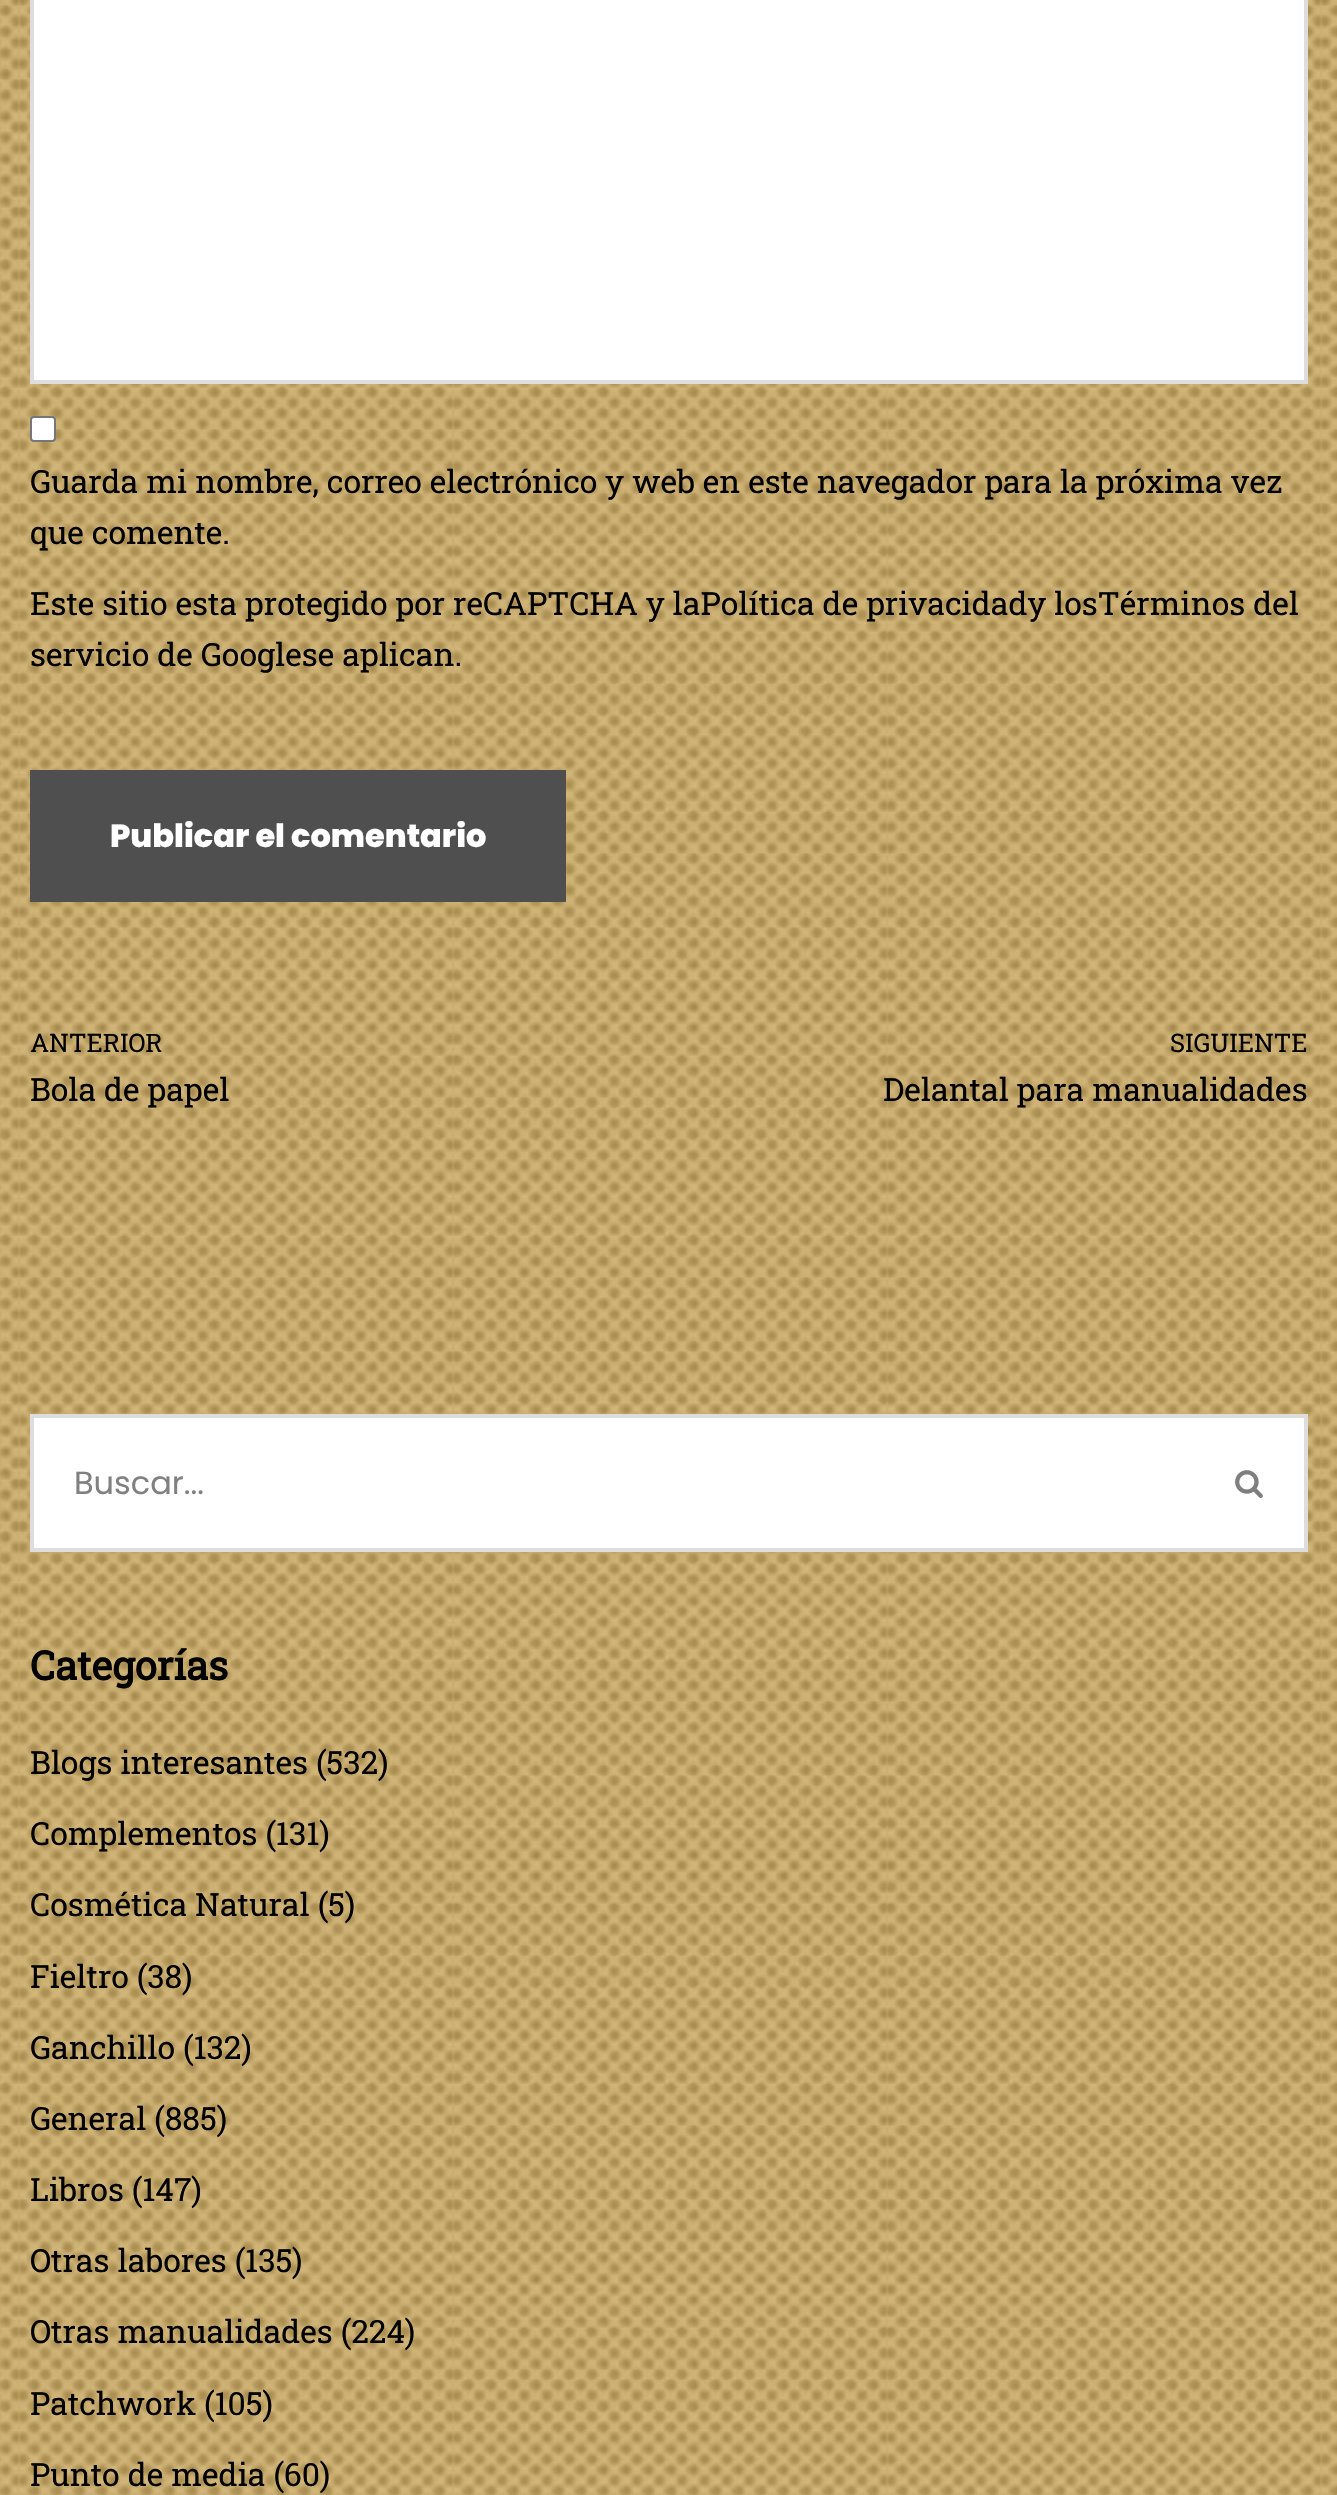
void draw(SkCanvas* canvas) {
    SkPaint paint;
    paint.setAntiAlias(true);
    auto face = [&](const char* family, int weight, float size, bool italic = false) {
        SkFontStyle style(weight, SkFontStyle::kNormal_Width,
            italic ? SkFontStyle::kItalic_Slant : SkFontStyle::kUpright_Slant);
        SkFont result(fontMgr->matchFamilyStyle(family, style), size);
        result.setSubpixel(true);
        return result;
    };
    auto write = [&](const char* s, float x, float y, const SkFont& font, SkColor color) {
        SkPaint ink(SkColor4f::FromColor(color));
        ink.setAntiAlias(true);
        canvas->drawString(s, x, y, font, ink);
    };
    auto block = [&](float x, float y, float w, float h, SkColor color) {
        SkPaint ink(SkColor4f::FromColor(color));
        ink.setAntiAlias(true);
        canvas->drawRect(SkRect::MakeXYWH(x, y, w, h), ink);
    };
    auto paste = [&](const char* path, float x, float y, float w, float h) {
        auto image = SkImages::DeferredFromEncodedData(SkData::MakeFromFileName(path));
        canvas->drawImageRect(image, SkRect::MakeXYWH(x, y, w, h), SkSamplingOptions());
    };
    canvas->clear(SK_ColorWHITE);
    paste("pic1.png", 0, 0, 1337, 2495);
    paint.setColor(SK_ColorWHITE);
    canvas->drawRect(SkRect::MakeXYWH(32, -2, 1274, 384), paint);
    paint.setStyle(SkPaint::kStroke_Style);
    paint.setStrokeWidth(4);
    paint.setColor(SkColorSetRGB(221, 221, 221));
    canvas->drawRect(SkRect::MakeXYWH(32, -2, 1274, 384), paint);
    paint.setStyle(SkPaint::kFill_Style);
    paint.setColor(SK_ColorWHITE);
    canvas->drawRoundRect(SkRect::MakeXYWH(31, 417, 24, 24), 3, 3, paint);
    paint.setStyle(SkPaint::kStroke_Style);
    paint.setStrokeWidth(2);
    paint.setColor(SkColorSetRGB(118, 118, 118));
    canvas->drawRoundRect(SkRect::MakeXYWH(31, 417, 24, 24), 3, 3, paint);
    auto kFont1 = face("Roboto Slab", 400, 32);
    write("Guarda mi nombre, correo electrónico y web en este navegador para la próxima vez", 30, 493, kFont1, SK_ColorBLACK);
    write("que comente.", 30, 544, kFont1, SK_ColorBLACK);
    write("Este sitio esta protegido por reCAPTCHA y laPolítica de privacidady losTérminos del", 30, 615, kFont1, SK_ColorBLACK);
    write("servicio de Googlese aplican.", 30, 666, kFont1, SK_ColorBLACK);
    block(30, 770, 536, 132, SkColorSetRGB(79, 79, 79));
    auto kFont2 = face("Poppins", 800, 32);
    write("Publicar el comentario", 110, 847, kFont2, SK_ColorWHITE);
    auto kFont3 = face("Roboto Slab", 400, 25.5f);
    write("ANTERIOR", 30, 1052, kFont3, SK_ColorBLACK);
    write("Bola de papel", 30, 1101, kFont1, SK_ColorBLACK);
    write("SIGUIENTE", 1170, 1052, kFont3, SK_ColorBLACK);
    write("Delantal para manualidades", 883, 1101, kFont1, SK_ColorBLACK);
    block(34, 1418, 1270, 130, SK_ColorWHITE);
    block(30, 1414, 1278, 4, SkColorSetRGB(221, 221, 221));
    block(30, 1548, 1164, 4, SkColorSetRGB(221, 221, 221));
    block(30, 1414, 4, 138, SkColorSetRGB(221, 221, 221));
    auto kFont4 = face("Poppins", 400, 32);
    write("Buscar...", 74, 1494, kFont4, SkColorSetRGB(128, 128, 128));
    block(1304, 1414, 4, 138, SkColorSetRGB(221, 221, 221));
    block(1194, 1548, 114, 4, SkColorSetRGB(221, 221, 221));
    paste("pic2.png", 1235, 1470, 28, 28);
    auto kFont5 = face("Roboto Slab", 700, 40);
    write("Categorías", 30, 1680, kFont5, SK_ColorBLACK);
    write("Blogs interesantes (532)", 30, 1774, kFont1, SK_ColorBLACK);
    write("Complementos (131)", 30, 1845, kFont1, SK_ColorBLACK);
    write("Cosmética Natural (5)", 30, 1916, kFont1, SK_ColorBLACK);
    write("Fieltro (38)", 30, 1988, kFont1, SK_ColorBLACK);
    write("Ganchillo (132)", 30, 2059, kFont1, SK_ColorBLACK);
    write("General (885)", 30, 2130, kFont1, SK_ColorBLACK);
    write("Libros (147)", 30, 2201, kFont1, SK_ColorBLACK);
    write("Otras labores (135)", 30, 2272, kFont1, SK_ColorBLACK);
    write("Otras manualidades (224)", 30, 2343, kFont1, SK_ColorBLACK);
    write("Patchwork (105)", 30, 2415, kFont1, SK_ColorBLACK);
    write("Punto de media (60)", 30, 2486, kFont1, SK_ColorBLACK);
}
